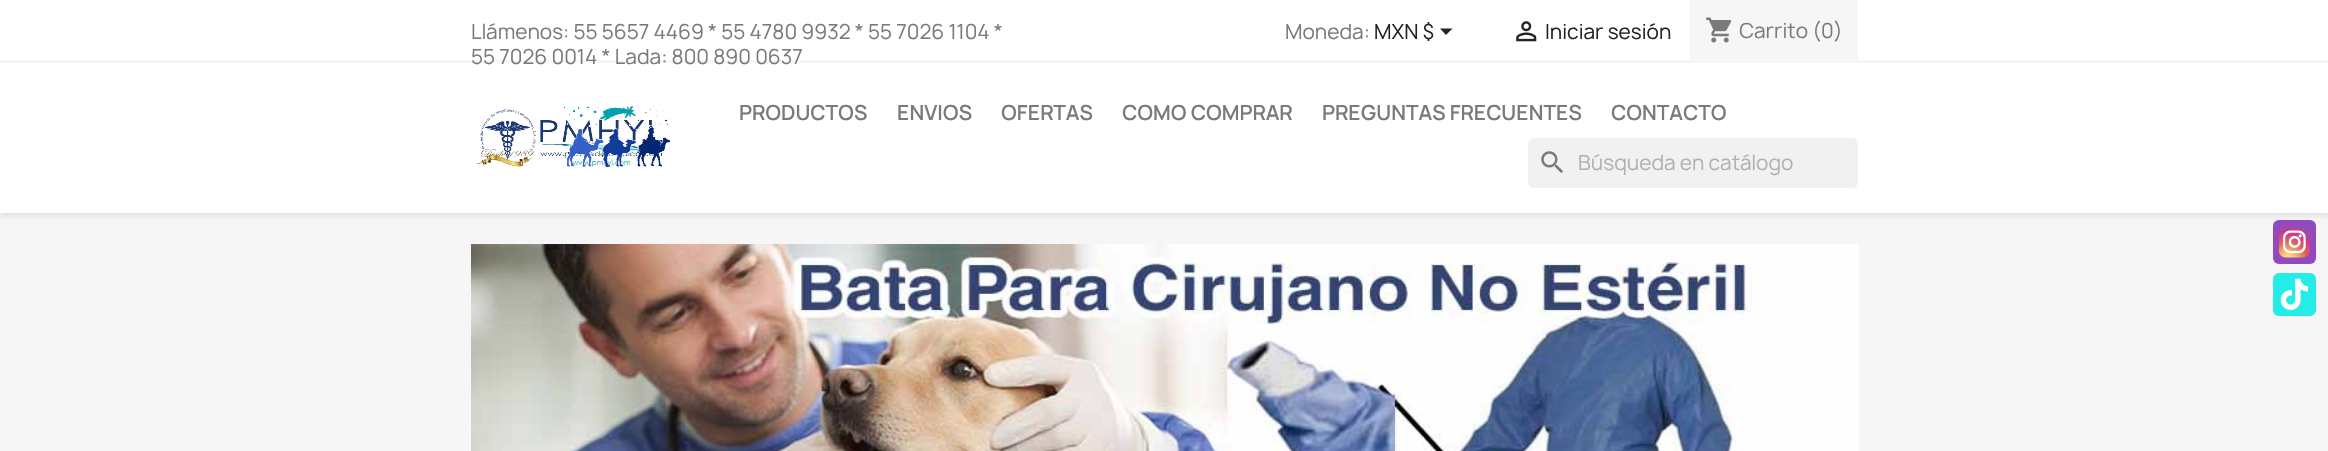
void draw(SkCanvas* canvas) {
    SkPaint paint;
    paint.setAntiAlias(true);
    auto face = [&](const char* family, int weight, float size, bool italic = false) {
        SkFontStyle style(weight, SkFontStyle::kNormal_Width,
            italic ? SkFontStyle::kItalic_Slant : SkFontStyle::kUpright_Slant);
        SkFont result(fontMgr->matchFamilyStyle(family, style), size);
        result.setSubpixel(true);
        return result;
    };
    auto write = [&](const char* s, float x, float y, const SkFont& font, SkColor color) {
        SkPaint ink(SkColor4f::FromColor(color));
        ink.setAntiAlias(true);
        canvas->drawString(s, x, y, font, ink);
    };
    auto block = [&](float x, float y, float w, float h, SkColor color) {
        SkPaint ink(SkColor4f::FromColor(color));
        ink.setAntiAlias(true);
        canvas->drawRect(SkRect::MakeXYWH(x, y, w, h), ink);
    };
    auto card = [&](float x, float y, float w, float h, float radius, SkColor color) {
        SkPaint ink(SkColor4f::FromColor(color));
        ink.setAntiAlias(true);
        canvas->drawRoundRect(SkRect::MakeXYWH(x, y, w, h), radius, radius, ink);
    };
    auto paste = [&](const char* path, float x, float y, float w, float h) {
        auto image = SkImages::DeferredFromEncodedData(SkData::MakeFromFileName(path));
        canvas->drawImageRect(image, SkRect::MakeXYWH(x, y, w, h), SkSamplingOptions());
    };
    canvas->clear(SkColorSetRGB(246, 246, 246));
    card(2273, 220, 43, 44, 6, SkColorSetRGB(145, 74, 192));
    paint.setColor(SkColorSetARGB(28, 0, 0, 0));
    paint.setMaskFilter(SkMaskFilter::MakeBlur(kNormal_SkBlurStyle, 3));
    canvas->drawRect(SkRect::MakeXYWH(0, 3, 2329, 212), paint);
    paint.setMaskFilter(nullptr);
    block(0, 0, 2328, 213, SK_ColorWHITE);
    block(0, 60, 2328, 3, SkColorSetRGB(246, 246, 246));
    auto kFont1 = face("Manrope", 400, 20);
    write("Llámenos: 55 5657 4469 * 55 4780 9932 * 55 7026 1104 *", 471, 39, kFont1, SkColorSetRGB(122, 122, 122));
    write("55 7026 0014 * Lada: 800 890 0637", 471, 64, kFont1, SkColorSetRGB(122, 122, 122));
    write("Moneda:", 1285, 39, kFont1, SkColorSetRGB(122, 122, 122));
    write("MXN $", 1374, 39, kFont1, SkColorSetRGB(35, 35, 35));
    paint.setColor(SkColorSetRGB(35, 35, 35));
    canvas->drawPath(SkPathBuilder().moveTo(1440, 28.5f).lineTo(1452.5f, 28.5f).lineTo(1446, 35).close().detach(), paint);
    paste("pic1.png", 1516, 21, 21, 21);
    write("Iniciar sesión", 1545, 39, kFont1, SkColorSetRGB(35, 35, 35));
    block(1690, 0, 168, 60, SkColorSetRGB(246, 246, 246));
    paste("pic2.png", 1706, 17, 26, 26);
    write("Carrito (0)", 1739, 38, kFont1, SkColorSetRGB(122, 122, 122));
    paste("pic3.png", 477, 106, 195, 63);
    auto kFont2 = face("Manrope", 600, 20);
    write("PRODUCTOS", 739, 120, kFont2, SkColorSetRGB(122, 122, 122));
    write("ENVIOS", 897, 120, kFont2, SkColorSetRGB(122, 122, 122));
    write("OFERTAS", 1001, 120, kFont2, SkColorSetRGB(122, 122, 122));
    write("COMO COMPRAR", 1122, 120, kFont2, SkColorSetRGB(122, 122, 122));
    write("PREGUNTAS FRECUENTES", 1322, 120, kFont2, SkColorSetRGB(122, 122, 122));
    write("CONTACTO", 1611, 120, kFont2, SkColorSetRGB(122, 122, 122));
    card(1528, 138, 330, 50, 6, SkColorSetRGB(241, 241, 241));
    paste("pic4.png", 1541, 151, 22, 22);
    write("Búsqueda en catálogo", 1578, 170, kFont1, SkColorSetRGB(177, 177, 177));
    paste("pic5.png", 471, 244, 1388, 207);
    paste("pic6.png", 2279, 226, 31, 32);
    card(2273, 273, 43, 43, 6, SkColorSetRGB(38, 236, 231));
    paste("pic7.png", 2280, 278, 29, 32);
}
